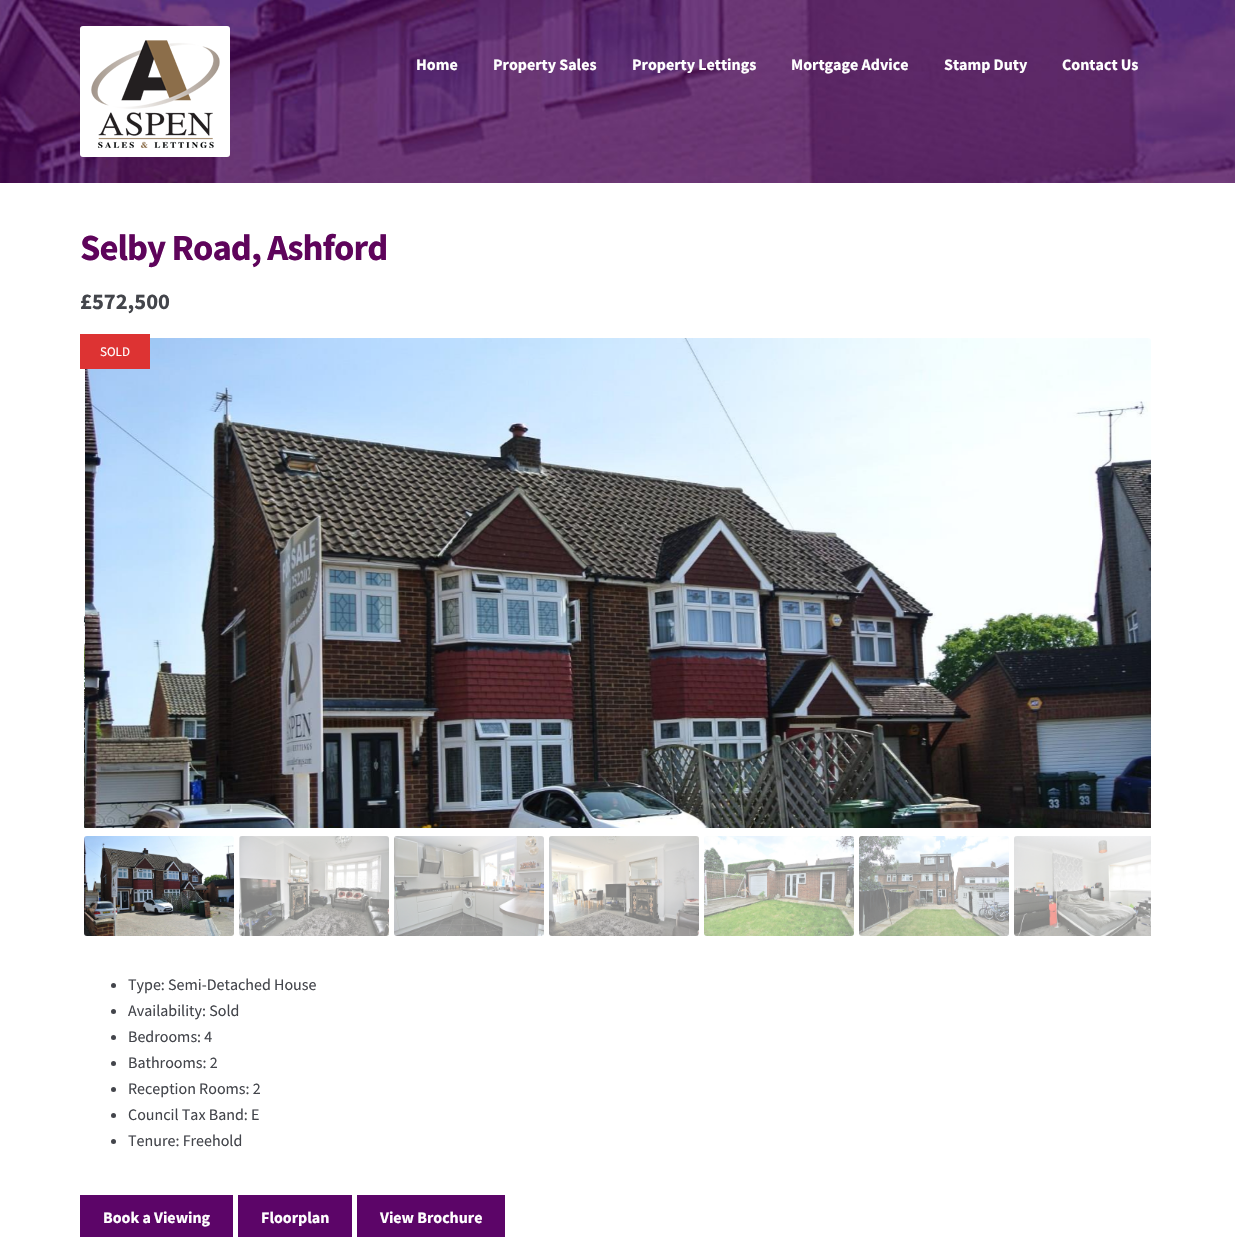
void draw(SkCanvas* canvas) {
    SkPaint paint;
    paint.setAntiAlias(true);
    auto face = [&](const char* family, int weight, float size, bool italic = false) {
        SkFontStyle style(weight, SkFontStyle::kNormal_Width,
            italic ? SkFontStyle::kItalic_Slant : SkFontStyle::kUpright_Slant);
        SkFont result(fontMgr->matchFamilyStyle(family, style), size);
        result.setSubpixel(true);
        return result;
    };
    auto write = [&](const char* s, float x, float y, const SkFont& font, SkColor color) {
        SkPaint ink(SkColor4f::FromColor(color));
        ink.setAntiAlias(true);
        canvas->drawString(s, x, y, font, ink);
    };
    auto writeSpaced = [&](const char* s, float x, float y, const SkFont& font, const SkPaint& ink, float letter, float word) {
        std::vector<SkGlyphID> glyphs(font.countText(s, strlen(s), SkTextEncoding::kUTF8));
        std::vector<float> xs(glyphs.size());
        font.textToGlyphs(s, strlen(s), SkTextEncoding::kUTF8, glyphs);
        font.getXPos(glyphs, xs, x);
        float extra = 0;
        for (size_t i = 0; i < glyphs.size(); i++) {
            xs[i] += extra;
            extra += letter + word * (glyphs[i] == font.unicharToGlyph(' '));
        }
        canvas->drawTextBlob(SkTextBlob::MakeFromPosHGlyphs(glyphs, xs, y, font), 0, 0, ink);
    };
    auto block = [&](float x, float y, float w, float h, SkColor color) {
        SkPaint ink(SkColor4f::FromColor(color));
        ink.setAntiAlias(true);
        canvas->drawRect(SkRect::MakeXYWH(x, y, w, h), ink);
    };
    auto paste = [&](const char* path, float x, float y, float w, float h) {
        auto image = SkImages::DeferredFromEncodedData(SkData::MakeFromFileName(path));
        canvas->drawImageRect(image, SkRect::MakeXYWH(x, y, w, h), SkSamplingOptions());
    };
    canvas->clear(SK_ColorWHITE);
    paste("pic1.png", 0, 0, 1235, 183);
    paste("pic2.png", 80, 26, 150, 131);
    auto kFont1 = face("Source Sans Pro", 700, 16);
    write("Home", 416, 70, kFont1, SK_ColorWHITE);
    write("Property Sales", 493, 70, kFont1, SK_ColorWHITE);
    write("Property Lettings", 632, 70, kFont1, SK_ColorWHITE);
    write("Mortgage Advice", 791, 70, kFont1, SK_ColorWHITE);
    write("Stamp Duty", 944, 70, kFont1, SK_ColorWHITE);
    write("Contact Us", 1062, 70, kFont1, SK_ColorWHITE);
    auto kFont2 = face("Source Sans Pro", 700, 36.75f);
    paint.setColor(SkColorSetRGB(94, 4, 91));
    writeSpaced("Selby Road, Ashford", 80, 260, kFont2, paint, -1, 0);
    auto kFont3 = face("Source Sans Pro", 700, 22.5f);
    write("£572,500", 80, 309, kFont3, SkColorSetRGB(67, 69, 75));
    paste("pic3.png", 84, 546, 1, 282);
    paste("pic4.png", 85, 338, 1066, 490);
    block(80, 334, 70, 35, SkColorSetRGB(221, 51, 51));
    auto kFont4 = face("Source Sans Pro", 400, 13);
    write("SOLD", 100, 356, kFont4, SK_ColorWHITE);
    paste("pic5.png", 84, 836, 150, 100);
    paste("pic6.png", 239, 836, 150, 100);
    paste("pic7.png", 394, 836, 150, 100);
    paste("pic8.png", 549, 836, 150, 100);
    paste("pic9.png", 704, 836, 150, 100);
    paste("pic10.png", 859, 836, 150, 100);
    paste("pic11.png", 1014, 836, 137, 100);
    paint.setColor(SkColorSetRGB(67, 69, 75));
    canvas->drawCircle(113.5f, 985.5f, 2.5f, paint);
    auto kFont5 = face("Source Sans Pro", 400, 16);
    write("Type: Semi-Detached House", 128, 990, kFont5, SkColorSetRGB(67, 69, 75));
    canvas->drawCircle(113.5f, 1011.5f, 2.5f, paint);
    write("Availability: Sold", 128, 1016, kFont5, SkColorSetRGB(67, 69, 75));
    canvas->drawCircle(113.5f, 1037.5f, 2.5f, paint);
    write("Bedrooms: 4", 128, 1042, kFont5, SkColorSetRGB(67, 69, 75));
    canvas->drawCircle(113.5f, 1063.5f, 2.5f, paint);
    write("Bathrooms: 2", 128, 1068, kFont5, SkColorSetRGB(67, 69, 75));
    canvas->drawCircle(113.5f, 1089.5f, 2.5f, paint);
    write("Reception Rooms: 2", 128, 1094, kFont5, SkColorSetRGB(67, 69, 75));
    canvas->drawCircle(113.5f, 1115.5f, 2.5f, paint);
    write("Council Tax Band: E", 128, 1120, kFont5, SkColorSetRGB(67, 69, 75));
    canvas->drawCircle(113.5f, 1141.5f, 2.5f, paint);
    write("Tenure: Freehold", 128, 1146, kFont5, SkColorSetRGB(67, 69, 75));
    block(80, 1195, 153, 42, SkColorSetRGB(92, 5, 104));
    write("Book a Viewing", 103, 1223, kFont1, SK_ColorWHITE);
    block(238, 1195, 114, 42, SkColorSetRGB(92, 5, 104));
    write("Floorplan", 261, 1223, kFont1, SK_ColorWHITE);
    block(357, 1195, 148, 42, SkColorSetRGB(92, 5, 104));
    write("View Brochure", 380, 1223, kFont1, SK_ColorWHITE);
}
